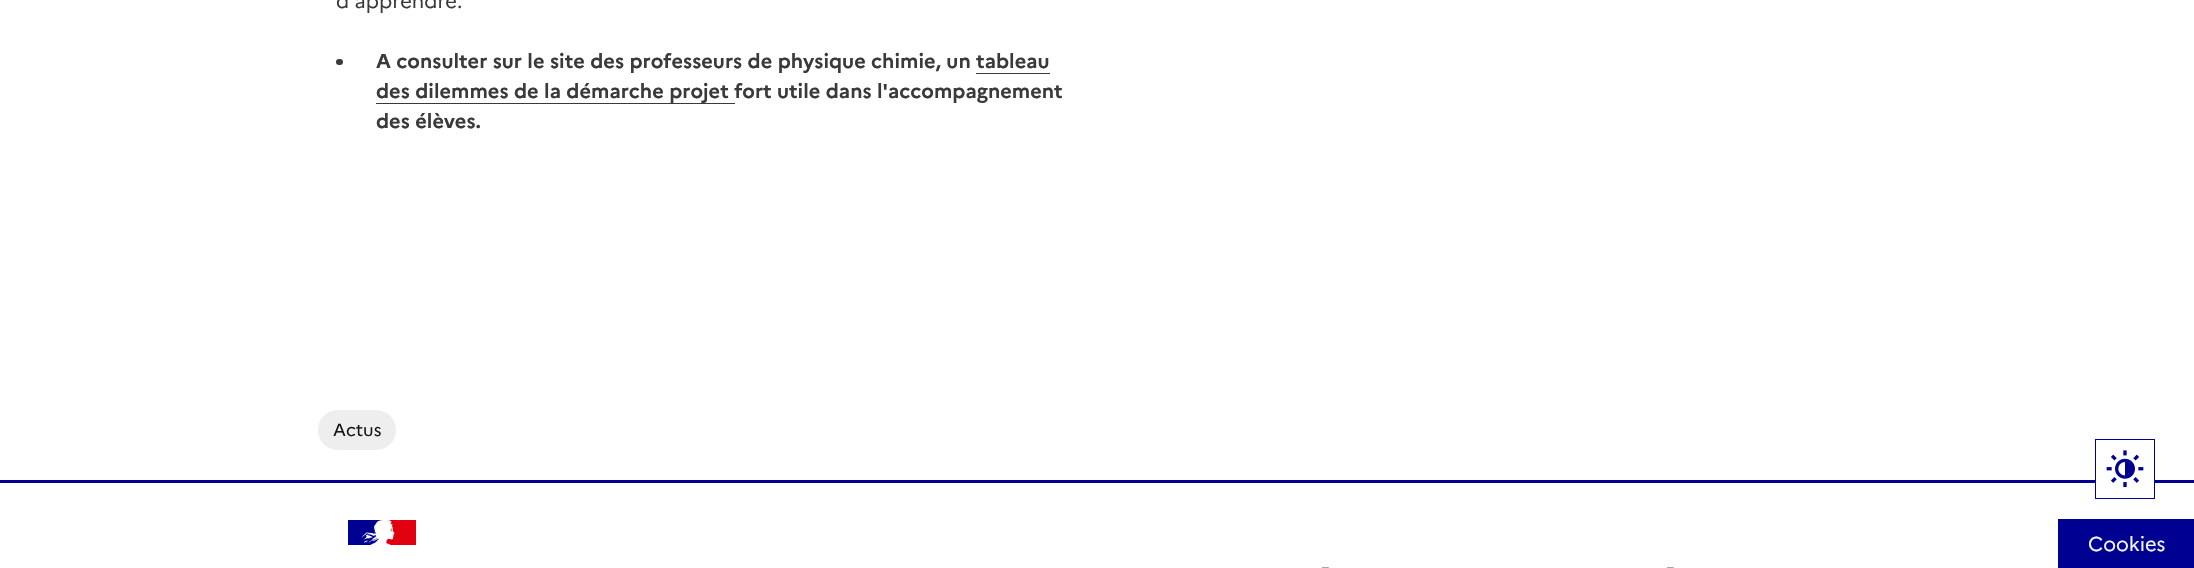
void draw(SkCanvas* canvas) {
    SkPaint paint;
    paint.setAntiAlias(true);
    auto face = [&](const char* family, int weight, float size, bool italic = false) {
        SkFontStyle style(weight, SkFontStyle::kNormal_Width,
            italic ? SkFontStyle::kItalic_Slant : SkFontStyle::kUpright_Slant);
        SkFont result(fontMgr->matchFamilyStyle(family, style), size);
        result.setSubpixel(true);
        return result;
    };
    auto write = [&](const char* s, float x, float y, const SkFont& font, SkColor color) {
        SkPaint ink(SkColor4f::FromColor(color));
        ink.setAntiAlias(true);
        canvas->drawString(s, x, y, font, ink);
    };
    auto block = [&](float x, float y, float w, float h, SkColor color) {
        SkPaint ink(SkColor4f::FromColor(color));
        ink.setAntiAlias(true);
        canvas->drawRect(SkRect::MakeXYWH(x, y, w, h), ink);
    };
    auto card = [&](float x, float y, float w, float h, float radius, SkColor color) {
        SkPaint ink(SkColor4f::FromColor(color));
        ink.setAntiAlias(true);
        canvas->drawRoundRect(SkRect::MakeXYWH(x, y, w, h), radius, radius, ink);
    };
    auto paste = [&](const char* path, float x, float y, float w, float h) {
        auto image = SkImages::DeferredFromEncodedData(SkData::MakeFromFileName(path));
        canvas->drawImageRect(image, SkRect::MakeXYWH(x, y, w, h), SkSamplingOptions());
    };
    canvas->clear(SK_ColorWHITE);
    auto kFont1 = face("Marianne", 400, 20);
    write("d’apprendre.", 336, 8, kFont1, SkColorSetRGB(58, 58, 58));
    card(336, 59, 7, 6, 3, SkColorSetRGB(58, 58, 58));
    auto kFont2 = face("Marianne", 700, 20);
    write("A consulter sur le site des professeurs de physique chimie, un tableau", 376, 68, kFont2, SkColorSetRGB(58, 58, 58));
    block(976, 73, 74, 1, SkColorSetRGB(58, 58, 58));
    write("des dilemmes de la démarche projet fort utile dans l'accompagnement", 376, 98, kFont2, SkColorSetRGB(58, 58, 58));
    block(376, 103, 359, 1, SkColorSetRGB(58, 58, 58));
    write("des élèves.", 376, 128, kFont2, SkColorSetRGB(58, 58, 58));
    card(318, 410, 78, 40, 20, SkColorSetRGB(238, 238, 238));
    auto kFont3 = face("Marianne", 400, 17.5f);
    write("Actus", 333, 436, kFont3, SkColorSetRGB(22, 22, 22));
    block(0, 480, 2194, 3, SkColorSetRGB(0, 0, 145));
    block(348, 520, 35, 25, SkColorSetRGB(0, 0, 145));
    block(386, 520, 30, 25, SkColorSetRGB(225, 0, 15));
    paste("pic1.png", 361, 520, 34, 25);
    paste("pic2.png", 1322, 567, 7, 1);
    paste("pic2.png", 1667, 567, 7, 1);
    block(2096, 480, 58, 3, SK_ColorWHITE);
    paint.setStyle(SkPaint::kStroke_Style);
    paint.setStrokeWidth(1);
    paint.setColor(SkColorSetRGB(0, 0, 145));
    canvas->drawRect(SkRect::MakeXYWH(2095.5f, 439.5f, 59, 59), paint);
    paste("pic3.png", 2106, 450, 38, 38);
    block(2058, 519, 136, 49, SkColorSetRGB(0, 0, 145));
    write("Cookies", 2088, 551, kFont1, SkColorSetRGB(245, 245, 254));
}
